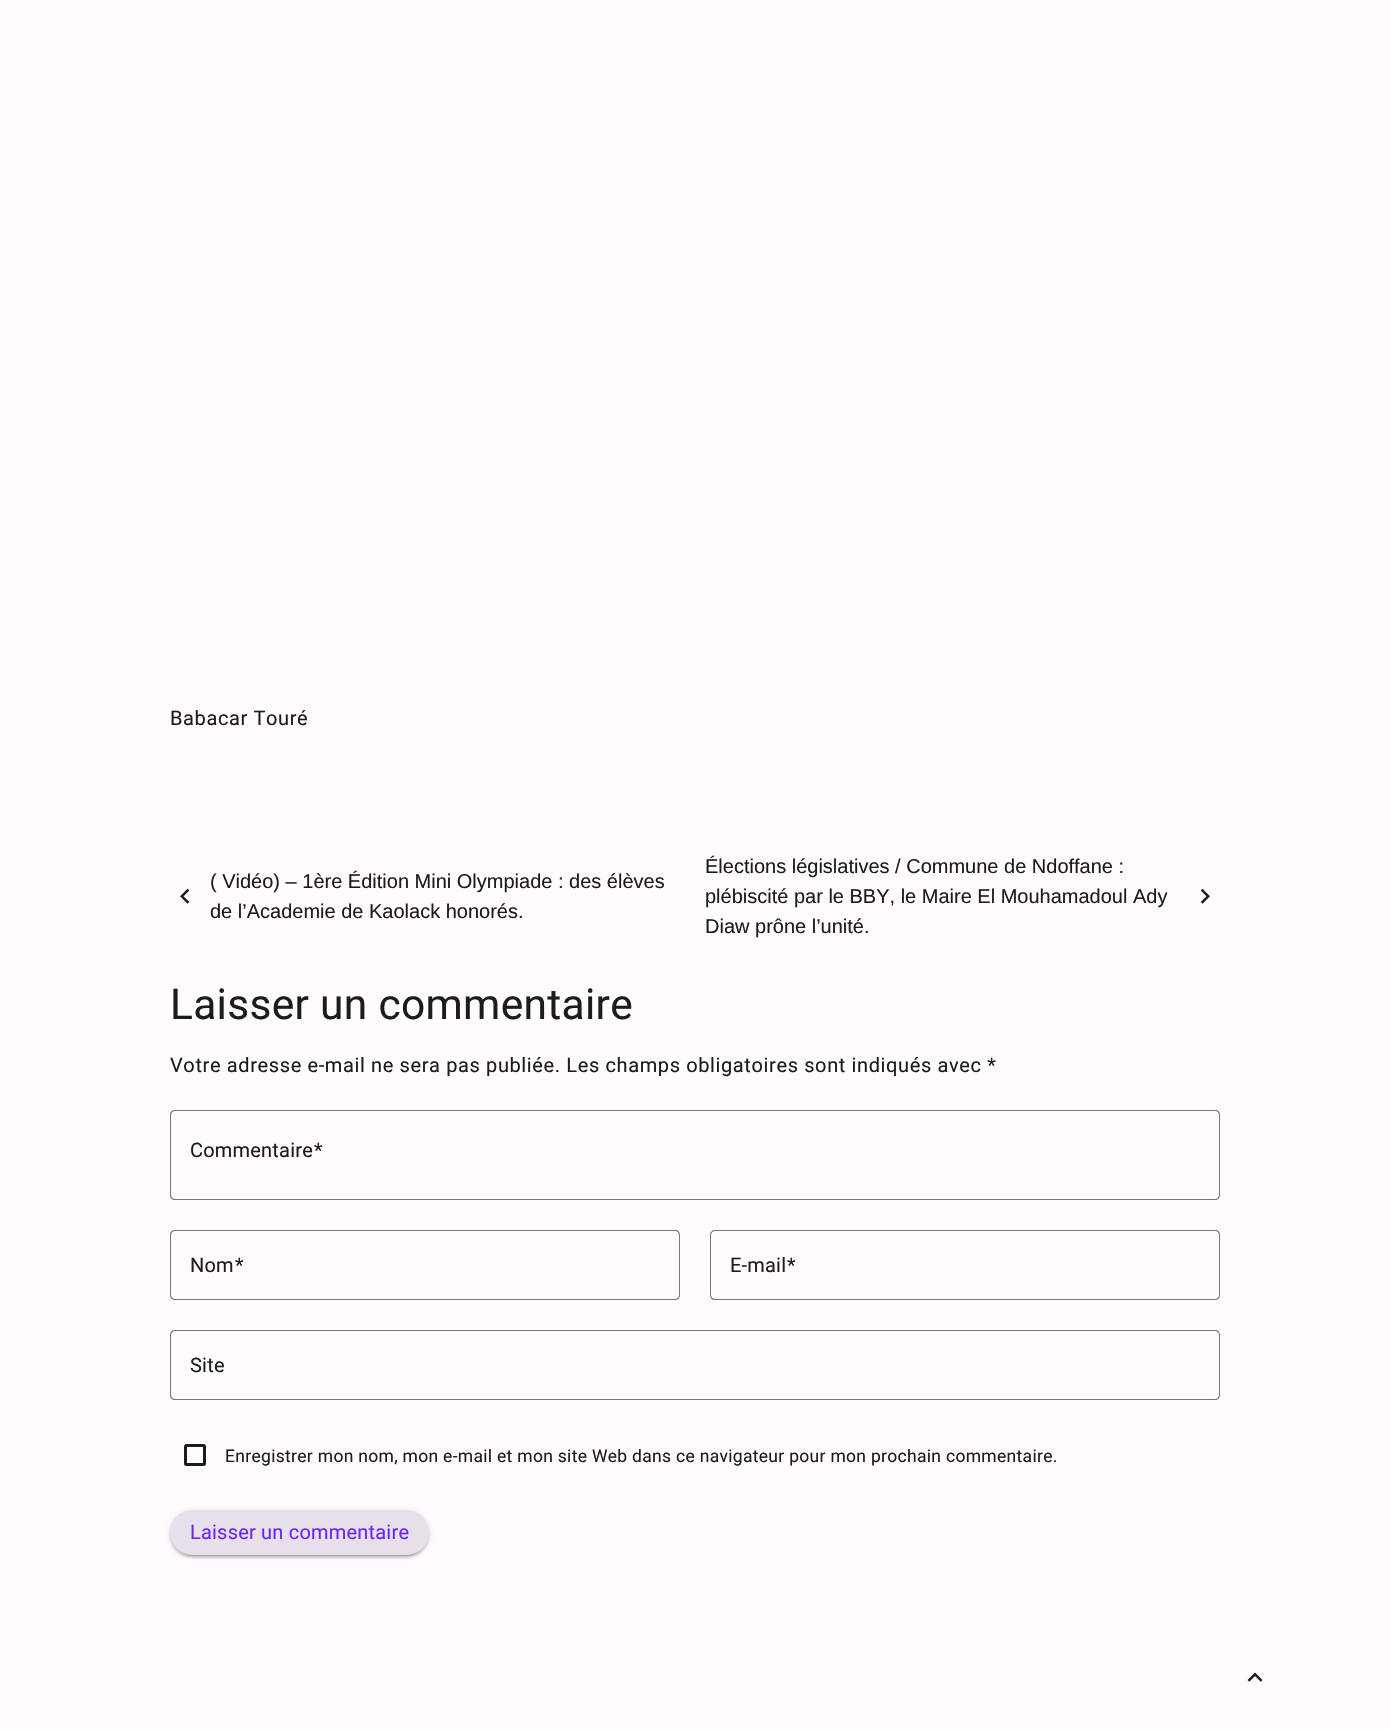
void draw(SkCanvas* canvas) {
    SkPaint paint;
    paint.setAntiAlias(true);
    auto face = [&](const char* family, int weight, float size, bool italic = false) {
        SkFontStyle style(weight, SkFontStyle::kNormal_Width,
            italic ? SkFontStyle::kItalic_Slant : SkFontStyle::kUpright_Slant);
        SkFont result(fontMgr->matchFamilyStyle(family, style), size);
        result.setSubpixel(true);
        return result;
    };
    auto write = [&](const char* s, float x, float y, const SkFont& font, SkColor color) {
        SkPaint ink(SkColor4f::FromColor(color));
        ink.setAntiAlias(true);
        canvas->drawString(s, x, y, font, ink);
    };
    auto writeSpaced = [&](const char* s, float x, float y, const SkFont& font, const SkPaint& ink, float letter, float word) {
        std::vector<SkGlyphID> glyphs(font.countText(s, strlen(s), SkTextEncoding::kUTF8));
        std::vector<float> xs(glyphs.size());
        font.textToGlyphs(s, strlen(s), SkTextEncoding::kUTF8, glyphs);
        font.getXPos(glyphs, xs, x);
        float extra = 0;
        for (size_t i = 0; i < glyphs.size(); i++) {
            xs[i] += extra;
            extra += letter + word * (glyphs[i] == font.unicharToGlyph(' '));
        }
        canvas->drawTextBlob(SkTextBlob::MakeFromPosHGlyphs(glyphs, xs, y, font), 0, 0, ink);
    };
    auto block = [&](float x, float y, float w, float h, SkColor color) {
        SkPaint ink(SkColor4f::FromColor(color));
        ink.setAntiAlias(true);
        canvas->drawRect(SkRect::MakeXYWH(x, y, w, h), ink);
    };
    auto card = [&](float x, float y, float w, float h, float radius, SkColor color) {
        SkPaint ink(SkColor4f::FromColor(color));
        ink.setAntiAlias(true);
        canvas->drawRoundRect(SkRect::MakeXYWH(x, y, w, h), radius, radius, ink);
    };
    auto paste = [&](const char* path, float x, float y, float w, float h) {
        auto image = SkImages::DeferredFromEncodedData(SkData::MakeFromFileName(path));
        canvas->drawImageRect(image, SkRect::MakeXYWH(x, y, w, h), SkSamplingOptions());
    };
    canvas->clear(SkColorSetRGB(255, 251, 254));
    auto kFont1 = face("Roboto", 400, 20);
    paint.setColor(SkColorSetRGB(28, 27, 30));
    writeSpaced("Babacar Touré", 170, 725, kFont1, paint, 0.62f, 0);
    paste("pic1.png", 180, 888, 10, 16);
    auto kFont2 = face("Liberation Sans", 400, 20);
    write("( Vidéo) – 1ère Édition Mini Olympiade : des élèves", 210, 888, kFont2, SkColorSetRGB(28, 27, 30));
    write("de l’Academie de Kaolack honorés.", 210, 918, kFont2, SkColorSetRGB(28, 27, 30));
    write("Élections législatives / Commune de Ndoffane :", 705, 873, kFont2, SkColorSetRGB(28, 27, 30));
    write("plébiscité par le BBY, le Maire El Mouhamadoul Ady", 705, 903, kFont2, SkColorSetRGB(28, 27, 30));
    write("Diaw prône l’unité.", 705, 933, kFont2, SkColorSetRGB(28, 27, 30));
    paste("pic2.png", 1200, 888, 10, 16);
    auto kFont3 = face("Roboto", 400, 42.5f);
    writeSpaced("Laisser un commentaire", 170, 1019, kFont3, paint, 0.3f, 0);
    writeSpaced("Votre adresse e-mail ne sera pas publiée. Les champs obligatoires sont indiqués avec *", 170, 1072, kFont1, paint, 0.62f, 0);
    paint.setColor(SkColorSetRGB(121, 117, 127));
    canvas->drawPath(SkPathBuilder(SkPathFillType::kEvenOdd).moveTo(175, 1110).lineTo(185, 1110).lineTo(185, 1200).lineTo(175, 1200).cubicTo(172, 1200, 170, 1198, 170, 1195).lineTo(170, 1115).cubicTo(170, 1112, 172, 1110, 175, 1110).close().moveTo(175, 1111).lineTo(185, 1111).lineTo(185, 1199).lineTo(175, 1199).cubicTo(173, 1199, 171, 1197, 171, 1195).lineTo(171, 1115).cubicTo(171, 1113, 173, 1111, 175, 1111).close().detach(), paint);
    block(185, 1110, 133, 1, SkColorSetRGB(121, 117, 127));
    block(185, 1199, 133, 1, SkColorSetRGB(121, 117, 127));
    paint.setColor(SkColorSetRGB(28, 27, 30));
    writeSpaced("Commentaire", 190, 1157, kFont1, paint, 0.2f, 0);
    paint.setColor(SkColorSetRGB(121, 117, 127));
    canvas->drawPath(SkPathBuilder(SkPathFillType::kEvenOdd).moveTo(318, 1110).lineTo(1215, 1110).cubicTo(1218, 1110, 1220, 1112, 1220, 1115).lineTo(1220, 1195).cubicTo(1220, 1198, 1218, 1200, 1215, 1200).lineTo(318, 1200).close().moveTo(318, 1111).lineTo(1215, 1111).cubicTo(1217, 1111, 1219, 1113, 1219, 1115).lineTo(1219, 1195).cubicTo(1219, 1197, 1217, 1199, 1215, 1199).lineTo(318, 1199).close().detach(), paint);
    paint.setColor(SkColorSetRGB(28, 27, 30));
    writeSpaced("*", 314, 1157, kFont1, paint, 0.2f, 0);
    paint.setColor(SkColorSetRGB(121, 117, 127));
    canvas->drawPath(SkPathBuilder(SkPathFillType::kEvenOdd).moveTo(175, 1230).lineTo(185, 1230).lineTo(185, 1300).lineTo(175, 1300).cubicTo(172, 1300, 170, 1298, 170, 1295).lineTo(170, 1235).cubicTo(170, 1232, 172, 1230, 175, 1230).close().moveTo(175, 1231).lineTo(185, 1231).lineTo(185, 1299).lineTo(175, 1299).cubicTo(173, 1299, 171, 1297, 171, 1295).lineTo(171, 1235).cubicTo(171, 1233, 173, 1231, 175, 1231).close().detach(), paint);
    block(185, 1230, 54, 1, SkColorSetRGB(121, 117, 127));
    block(185, 1299, 54, 1, SkColorSetRGB(121, 117, 127));
    paint.setColor(SkColorSetRGB(28, 27, 30));
    writeSpaced("Nom", 190, 1272, kFont1, paint, 0.2f, 0);
    paint.setColor(SkColorSetRGB(121, 117, 127));
    canvas->drawPath(SkPathBuilder(SkPathFillType::kEvenOdd).moveTo(239, 1230).lineTo(675, 1230).cubicTo(678, 1230, 680, 1232, 680, 1235).lineTo(680, 1295).cubicTo(680, 1298, 678, 1300, 675, 1300).lineTo(239, 1300).close().moveTo(239, 1231).lineTo(675, 1231).cubicTo(677, 1231, 679, 1233, 679, 1235).lineTo(679, 1295).cubicTo(679, 1297, 677, 1299, 675, 1299).lineTo(239, 1299).close().detach(), paint);
    paint.setColor(SkColorSetRGB(28, 27, 30));
    writeSpaced("*", 235, 1272, kFont1, paint, 0.2f, 0);
    paint.setColor(SkColorSetRGB(121, 117, 127));
    canvas->drawPath(SkPathBuilder(SkPathFillType::kEvenOdd).moveTo(715, 1230).lineTo(725, 1230).lineTo(725, 1300).lineTo(715, 1300).cubicTo(712, 1300, 710, 1298, 710, 1295).lineTo(710, 1235).cubicTo(710, 1232, 712, 1230, 715, 1230).close().moveTo(715, 1231).lineTo(725, 1231).lineTo(725, 1299).lineTo(715, 1299).cubicTo(713, 1299, 711, 1297, 711, 1295).lineTo(711, 1235).cubicTo(711, 1233, 713, 1231, 715, 1231).close().detach(), paint);
    block(725, 1230, 66, 1, SkColorSetRGB(121, 117, 127));
    block(725, 1299, 66, 1, SkColorSetRGB(121, 117, 127));
    paint.setColor(SkColorSetRGB(28, 27, 30));
    writeSpaced("E-mail", 730, 1272, kFont1, paint, 0.2f, 0);
    paint.setColor(SkColorSetRGB(121, 117, 127));
    canvas->drawPath(SkPathBuilder(SkPathFillType::kEvenOdd).moveTo(791, 1230).lineTo(1215, 1230).cubicTo(1218, 1230, 1220, 1232, 1220, 1235).lineTo(1220, 1295).cubicTo(1220, 1298, 1218, 1300, 1215, 1300).lineTo(791, 1300).close().moveTo(791, 1231).lineTo(1215, 1231).cubicTo(1217, 1231, 1219, 1233, 1219, 1235).lineTo(1219, 1295).cubicTo(1219, 1297, 1217, 1299, 1215, 1299).lineTo(791, 1299).close().detach(), paint);
    paint.setColor(SkColorSetRGB(28, 27, 30));
    writeSpaced("*", 787, 1272, kFont1, paint, 0.2f, 0);
    paint.setColor(SkColorSetRGB(121, 117, 127));
    canvas->drawPath(SkPathBuilder(SkPathFillType::kEvenOdd).moveTo(175, 1330).lineTo(185, 1330).lineTo(185, 1400).lineTo(175, 1400).cubicTo(172, 1400, 170, 1398, 170, 1395).lineTo(170, 1335).cubicTo(170, 1332, 172, 1330, 175, 1330).close().moveTo(175, 1331).lineTo(185, 1331).lineTo(185, 1399).lineTo(175, 1399).cubicTo(173, 1399, 171, 1397, 171, 1395).lineTo(171, 1335).cubicTo(171, 1333, 173, 1331, 175, 1331).close().detach(), paint);
    block(185, 1330, 35, 1, SkColorSetRGB(121, 117, 127));
    block(185, 1399, 35, 1, SkColorSetRGB(121, 117, 127));
    canvas->drawPath(SkPathBuilder(SkPathFillType::kEvenOdd).moveTo(220, 1330).lineTo(1215, 1330).cubicTo(1218, 1330, 1220, 1332, 1220, 1335).lineTo(1220, 1395).cubicTo(1220, 1398, 1218, 1400, 1215, 1400).lineTo(220, 1400).close().moveTo(220, 1331).lineTo(1215, 1331).cubicTo(1217, 1331, 1219, 1333, 1219, 1335).lineTo(1219, 1395).cubicTo(1219, 1397, 1217, 1399, 1215, 1399).lineTo(220, 1399).close().detach(), paint);
    paint.setColor(SkColorSetRGB(28, 27, 30));
    writeSpaced("Site", 190, 1372, kFont1, paint, 0.2f, 0);
    paint.setStyle(SkPaint::kStroke_Style);
    paint.setStrokeWidth(3);
    canvas->drawRoundRect(SkRect::MakeXYWH(185.5f, 1445.5f, 19, 19), 1, 1, paint);
    auto kFont4 = face("Roboto", 400, 17.5f);
    paint.setStyle(SkPaint::kFill_Style);
    writeSpaced("Enregistrer mon nom, mon e-mail et mon site Web dans ce navigateur pour mon prochain commentaire.", 225, 1462, kFont4, paint, 0.3f, 0);
    paint.setColor(SkColorSetARGB(31, 0, 0, 0));
    paint.setMaskFilter(SkMaskFilter::MakeBlur(kNormal_SkBlurStyle, 3));
    canvas->drawRoundRect(SkRect::MakeXYWH(170, 1511, 259, 45), 22.5f, 22.5f, paint);
    paint.setMaskFilter(nullptr);
    paint.setColor(SkColorSetARGB(36, 0, 0, 0));
    paint.setMaskFilter(SkMaskFilter::MakeBlur(kNormal_SkBlurStyle, 1));
    canvas->drawRoundRect(SkRect::MakeXYWH(170, 1513, 259, 45), 22.5f, 22.5f, paint);
    paint.setMaskFilter(nullptr);
    paint.setColor(SkColorSetARGB(51, 0, 0, 0));
    paint.setMaskFilter(SkMaskFilter::MakeBlur(kNormal_SkBlurStyle, 0.5f));
    canvas->drawRoundRect(SkRect::MakeXYWH(173, 1516, 253, 40), 20, 20, paint);
    paint.setMaskFilter(nullptr);
    card(170, 1510, 259, 45, 22.5f, SkColorSetRGB(230, 224, 235));
    paint.setColor(SkColorSetRGB(109, 35, 248));
    writeSpaced("Laisser un commentaire", 190, 1539, kFont1, paint, 0.2f, 0);
    paste("pic3.png", 1247, 1672, 16, 10);
}
